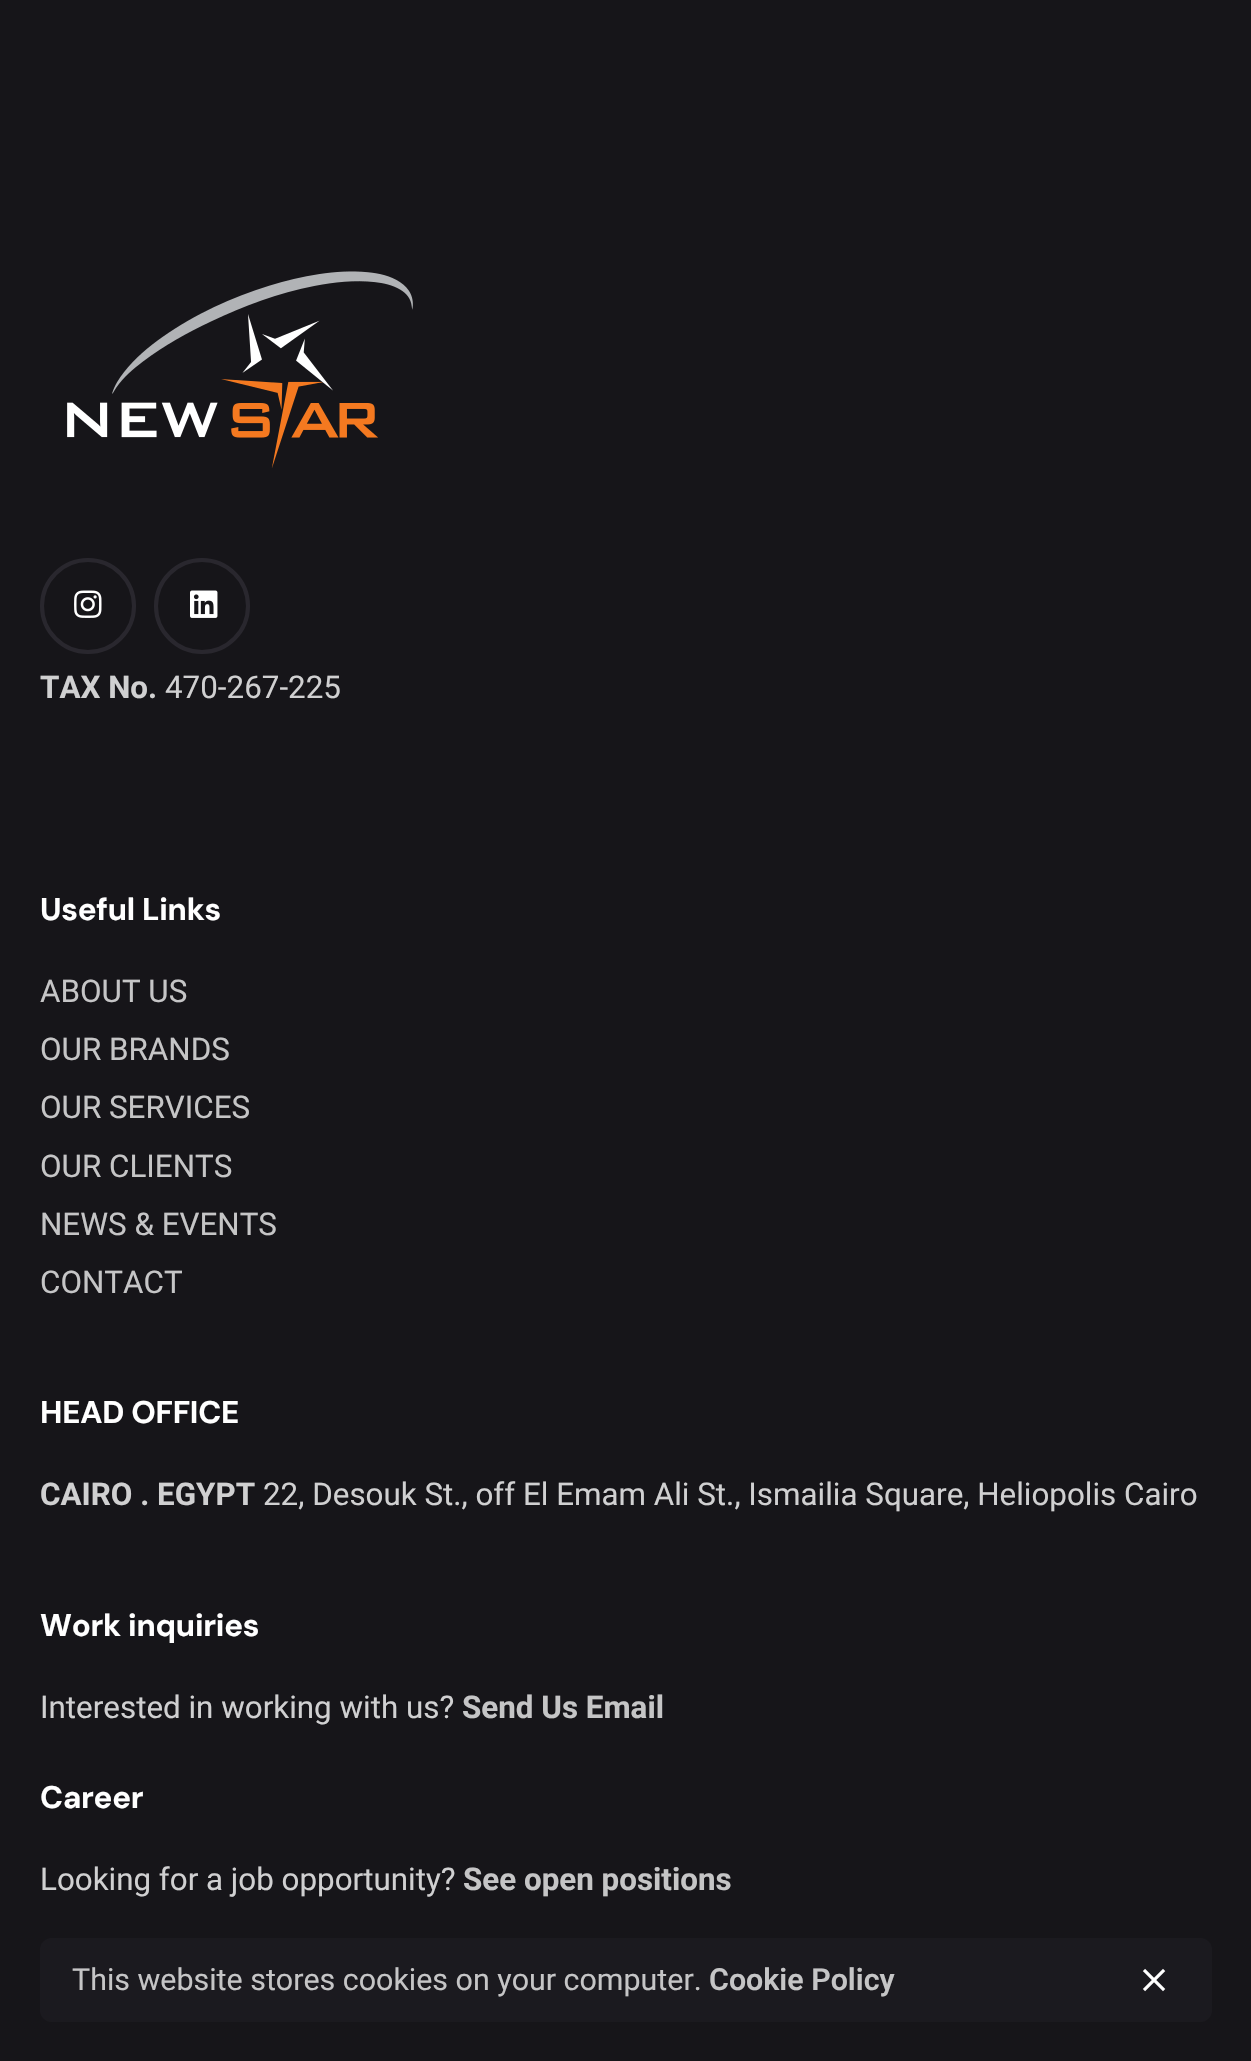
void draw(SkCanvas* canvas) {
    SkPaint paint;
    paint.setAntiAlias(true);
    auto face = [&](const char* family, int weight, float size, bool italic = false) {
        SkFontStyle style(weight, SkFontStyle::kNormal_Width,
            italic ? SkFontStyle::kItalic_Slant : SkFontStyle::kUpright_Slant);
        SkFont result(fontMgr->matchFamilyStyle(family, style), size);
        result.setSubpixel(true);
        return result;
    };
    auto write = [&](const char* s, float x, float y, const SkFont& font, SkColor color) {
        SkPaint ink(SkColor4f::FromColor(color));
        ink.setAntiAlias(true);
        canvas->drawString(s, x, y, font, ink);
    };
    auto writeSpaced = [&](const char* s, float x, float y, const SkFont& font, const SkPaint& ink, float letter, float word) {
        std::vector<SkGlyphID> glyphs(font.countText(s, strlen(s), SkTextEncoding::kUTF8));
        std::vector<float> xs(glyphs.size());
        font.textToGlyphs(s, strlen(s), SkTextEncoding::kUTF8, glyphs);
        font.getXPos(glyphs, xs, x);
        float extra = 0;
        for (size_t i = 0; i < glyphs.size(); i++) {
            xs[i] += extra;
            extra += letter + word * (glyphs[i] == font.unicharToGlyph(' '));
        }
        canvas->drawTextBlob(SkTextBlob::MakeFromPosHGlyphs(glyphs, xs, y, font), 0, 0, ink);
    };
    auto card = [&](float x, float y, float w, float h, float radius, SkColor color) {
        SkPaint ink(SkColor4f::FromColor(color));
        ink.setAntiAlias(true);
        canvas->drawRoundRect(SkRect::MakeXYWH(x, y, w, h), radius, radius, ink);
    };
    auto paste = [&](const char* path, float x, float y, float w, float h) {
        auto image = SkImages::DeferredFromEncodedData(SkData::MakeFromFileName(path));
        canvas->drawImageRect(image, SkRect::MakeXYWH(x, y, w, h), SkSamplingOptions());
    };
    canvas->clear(SkColorSetRGB(22, 21, 25));
    paste("pic1.png", 67, 271, 346, 197);
    paint.setStyle(SkPaint::kStroke_Style);
    paint.setStrokeWidth(4);
    paint.setColor(SkColorSetRGB(41, 39, 46));
    canvas->drawCircle(88, 606, 46, paint);
    paste("pic2.png", 74, 590, 28, 28);
    canvas->drawCircle(202, 606, 46, paint);
    paste("pic3.png", 190, 590, 28, 28);
    auto kFont1 = face("Roboto", 700, 31.35f);
    write("TAX No.", 40, 698, kFont1, SkColorSetRGB(208, 208, 209));
    auto kFont2 = face("Roboto", 400, 31.35f);
    write("470-267-225", 165, 698, kFont2, SkColorSetRGB(208, 208, 209));
    auto kFont3 = face("DM Sans", 700, 31.35f);
    paint.setStyle(SkPaint::kFill_Style);
    paint.setColor(SK_ColorWHITE);
    writeSpaced("Useful Links", 40, 920, kFont3, paint, -0.25f, 0);
    write("ABOUT US", 40, 1002, kFont2, SkColorSetRGB(197, 197, 198));
    write("OUR BRANDS", 40, 1060, kFont2, SkColorSetRGB(197, 197, 198));
    write("OUR SERVICES", 40, 1118, kFont2, SkColorSetRGB(197, 197, 198));
    write("OUR CLIENTS", 40, 1177, kFont2, SkColorSetRGB(197, 197, 198));
    write("NEWS & EVENTS", 40, 1235, kFont2, SkColorSetRGB(197, 197, 198));
    write("CONTACT", 40, 1293, kFont2, SkColorSetRGB(197, 197, 198));
    writeSpaced("HEAD OFFICE", 40, 1423, kFont3, paint, -0.25f, 0);
    write("CAIRO . EGYPT", 40, 1505, kFont1, SkColorSetRGB(208, 208, 209));
    write("22, Desouk St., off El Emam Ali St., Ismailia Square, Heliopolis Cairo", 263, 1505, kFont2, SkColorSetRGB(208, 208, 209));
    writeSpaced("Work inquiries", 40, 1636, kFont3, paint, -0.25f, 0);
    write("Interested in working with us?", 40, 1718, kFont2, SkColorSetRGB(208, 208, 209));
    write("Send Us Email", 462, 1718, kFont1, SkColorSetRGB(197, 197, 198));
    writeSpaced("Career", 40, 1808, kFont3, paint, -0.25f, 0);
    write("Looking for a job opportunity?", 40, 1890, kFont2, SkColorSetRGB(208, 208, 209));
    write("See open positions", 463, 1890, kFont1, SkColorSetRGB(197, 197, 198));
    card(40, 1938, 1172, 84, 12, SkColorSetRGB(27, 26, 31));
    auto kFont4 = face("Roboto", 400, 30.4f);
    write("This website stores cookies on your computer.", 72, 1990, kFont4, SkColorSetRGB(197, 197, 198));
    auto kFont5 = face("Roboto", 600, 30.4f);
    write("Cookie Policy", 709, 1990, kFont5, SkColorSetRGB(197, 197, 198));
    paste("pic4.png", 1142, 1968, 24, 24);
}
